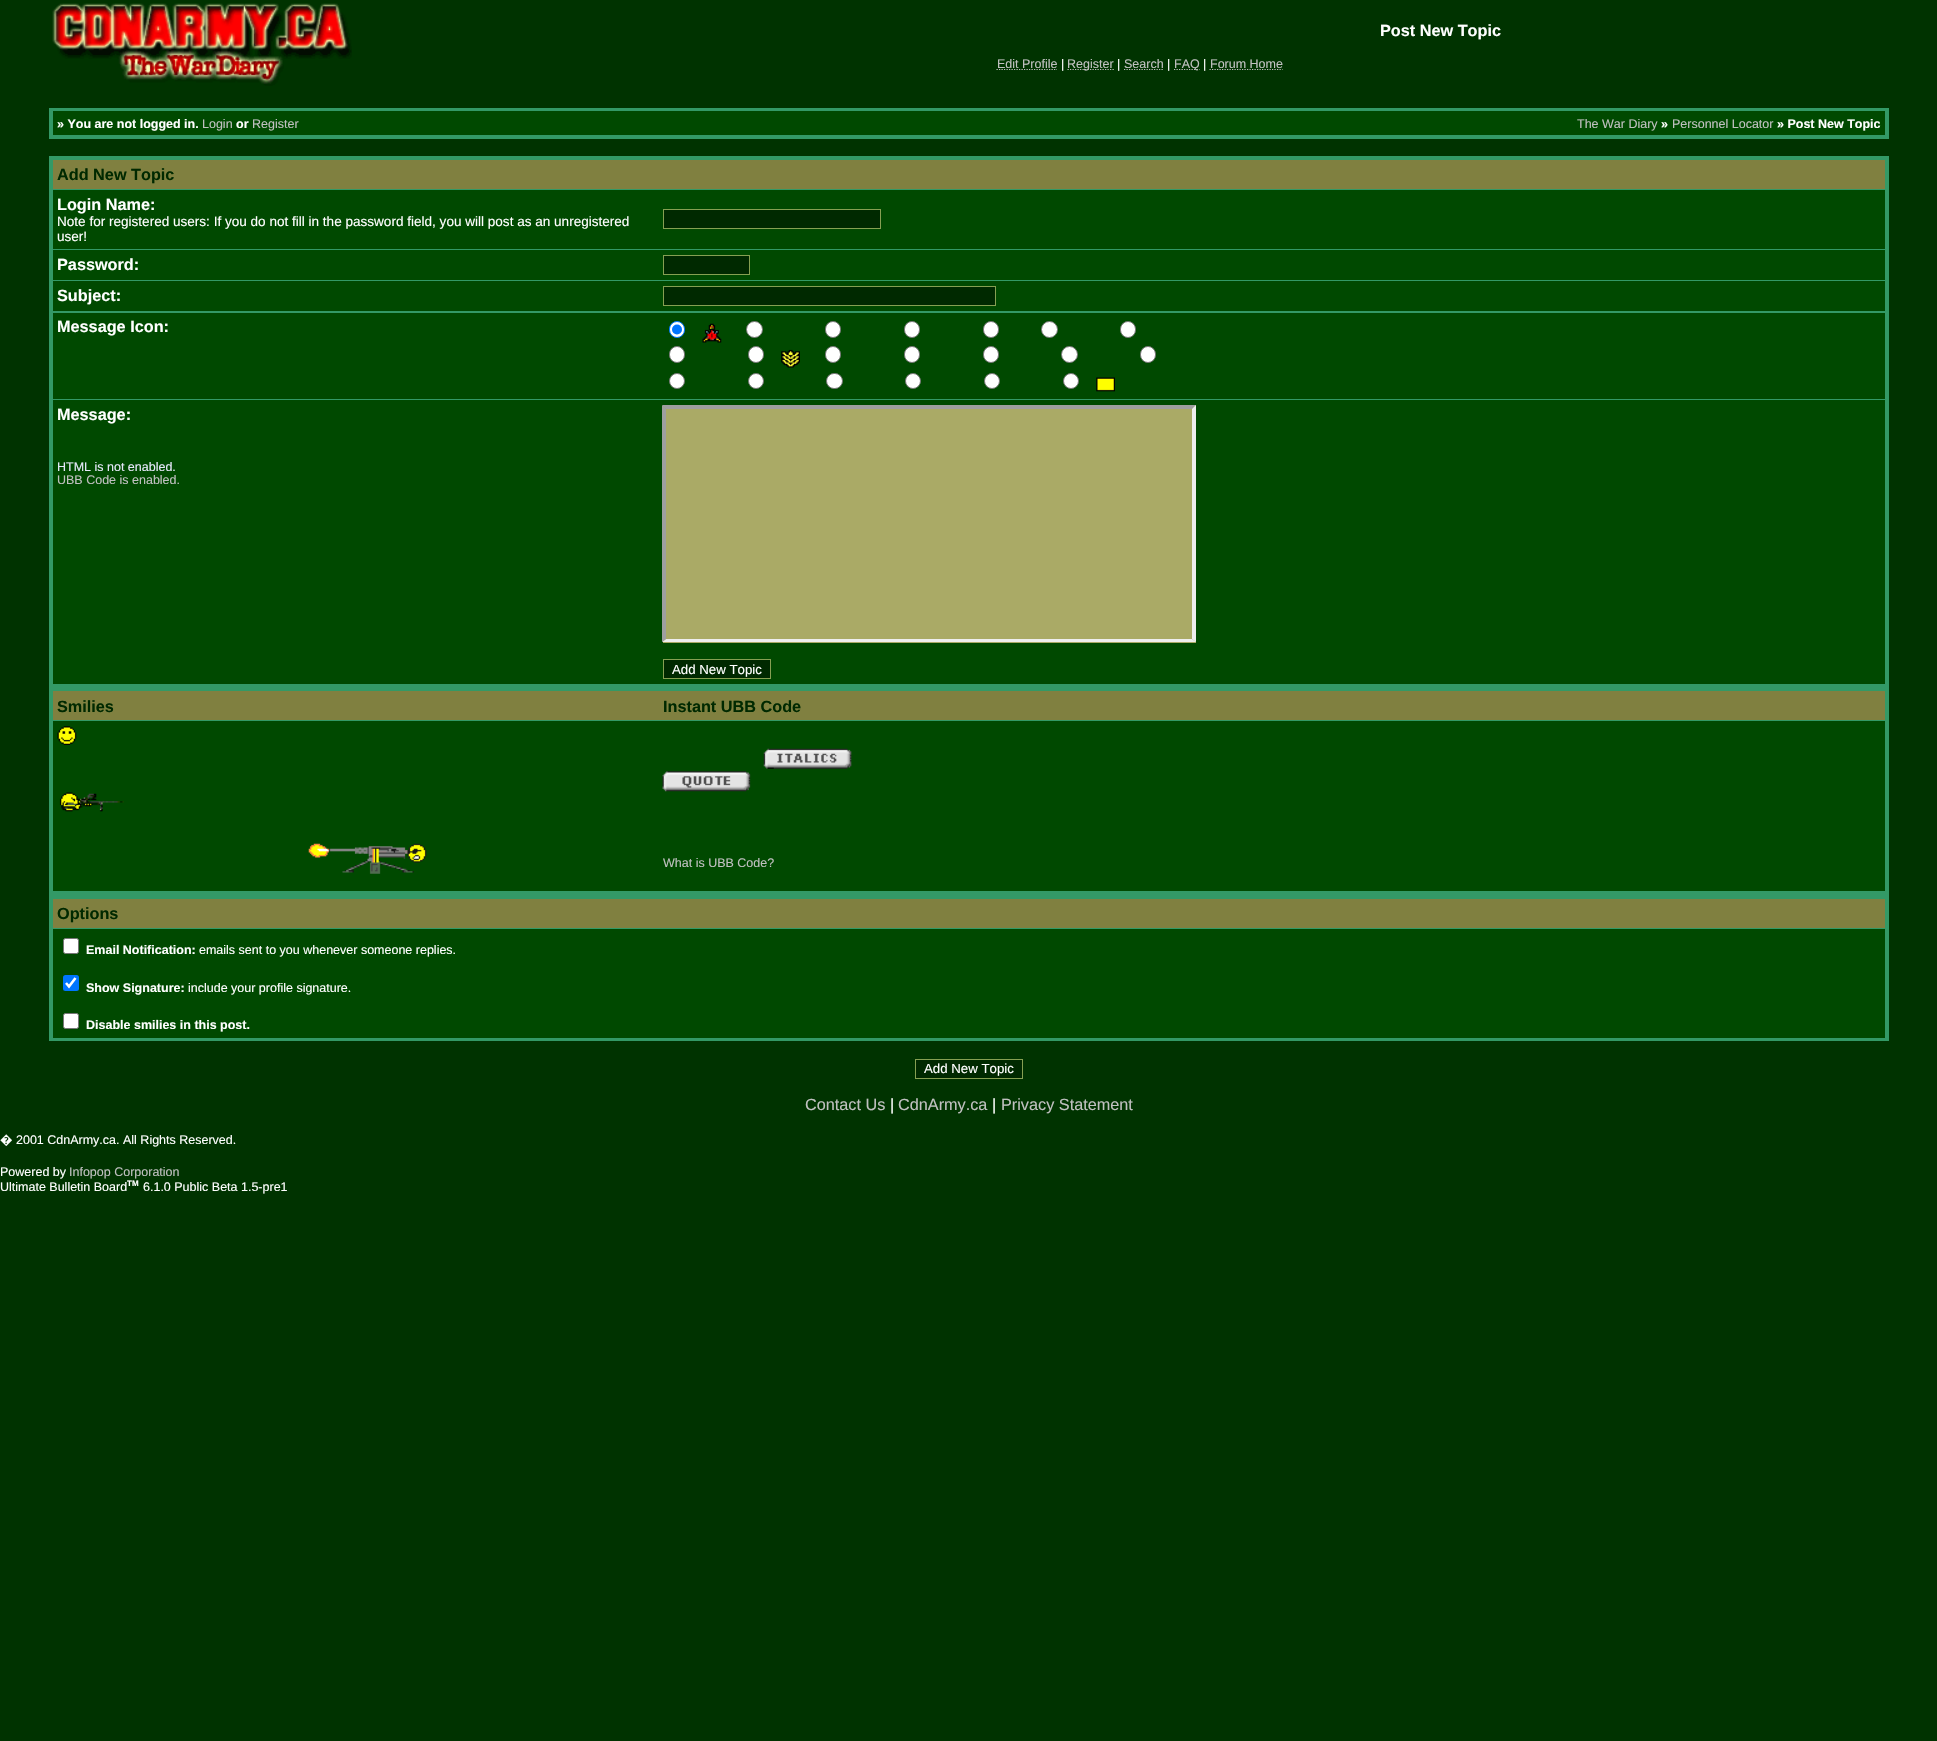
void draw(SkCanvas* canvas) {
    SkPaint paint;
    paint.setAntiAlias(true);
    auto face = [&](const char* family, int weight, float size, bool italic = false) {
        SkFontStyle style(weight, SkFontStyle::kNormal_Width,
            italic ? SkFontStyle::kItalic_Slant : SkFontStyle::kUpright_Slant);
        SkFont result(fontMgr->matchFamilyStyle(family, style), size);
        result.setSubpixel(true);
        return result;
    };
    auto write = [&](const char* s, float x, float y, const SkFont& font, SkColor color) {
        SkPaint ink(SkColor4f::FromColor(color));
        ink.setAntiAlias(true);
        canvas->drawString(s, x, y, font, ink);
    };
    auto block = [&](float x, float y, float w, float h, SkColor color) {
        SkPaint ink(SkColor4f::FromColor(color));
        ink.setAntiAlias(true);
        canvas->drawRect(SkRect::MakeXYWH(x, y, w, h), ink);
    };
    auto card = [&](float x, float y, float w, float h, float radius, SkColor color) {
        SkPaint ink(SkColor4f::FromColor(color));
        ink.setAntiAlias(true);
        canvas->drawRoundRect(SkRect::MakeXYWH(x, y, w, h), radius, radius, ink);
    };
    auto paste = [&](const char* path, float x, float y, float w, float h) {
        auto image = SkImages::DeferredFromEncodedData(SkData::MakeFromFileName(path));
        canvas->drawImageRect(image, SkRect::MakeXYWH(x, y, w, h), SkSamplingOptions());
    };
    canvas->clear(SkColorSetRGB(0, 51, 0));
    paste("pic1.png", 52, 3, 300, 83);
    auto kFont1 = face("Liberation Sans", 700, 16.25f);
    write("Post New Topic", 1380, 36, kFont1, SK_ColorWHITE);
    paint.setStyle(SkPaint::kStroke_Style);
    paint.setStrokeWidth(1.2f);
    paint.setColor(SkColorSetRGB(192, 192, 192));
    paint.setPathEffect(SkDashPathEffect::Make({{1.25f, 1.25f}}, 0));
    canvas->drawPath(SkPathBuilder().moveTo(996.5f, 69.5f).lineTo(1057, 69.5f).detach(), paint);
    paint.setPathEffect(nullptr);
    auto kFont2 = face("Liberation Sans", 400, 12.5f);
    write("Edit Profile", 997, 68, kFont2, SkColorSetRGB(192, 192, 192));
    write("|", 1061, 68, kFont2, SK_ColorWHITE);
    paint.setPathEffect(SkDashPathEffect::Make({{1.25f, 1.25f}}, 0));
    canvas->drawPath(SkPathBuilder().moveTo(1067.5f, 69.5f).lineTo(1114, 69.5f).detach(), paint);
    paint.setPathEffect(nullptr);
    write("Register", 1067, 68, kFont2, SkColorSetRGB(192, 192, 192));
    write("|", 1117, 68, kFont2, SK_ColorWHITE);
    paint.setPathEffect(SkDashPathEffect::Make({{1.25f, 1.25f}}, 0));
    canvas->drawPath(SkPathBuilder().moveTo(1124, 69.5f).lineTo(1163.5f, 69.5f).detach(), paint);
    paint.setPathEffect(nullptr);
    write("Search", 1124, 68, kFont2, SkColorSetRGB(192, 192, 192));
    write("|", 1167, 68, kFont2, SK_ColorWHITE);
    paint.setPathEffect(SkDashPathEffect::Make({{1.25f, 1.25f}}, 0));
    canvas->drawPath(SkPathBuilder().moveTo(1174, 69.5f).lineTo(1199.5f, 69.5f).detach(), paint);
    paint.setPathEffect(nullptr);
    write("FAQ", 1174, 68, kFont2, SkColorSetRGB(192, 192, 192));
    write("|", 1203, 68, kFont2, SK_ColorWHITE);
    paint.setPathEffect(SkDashPathEffect::Make({{1.25f, 1.25f}}, 0));
    canvas->drawPath(SkPathBuilder().moveTo(1209.5f, 69.5f).lineTo(1282.5f, 69.5f).detach(), paint);
    paint.setPathEffect(nullptr);
    write("Forum Home", 1210, 68, kFont2, SkColorSetRGB(192, 192, 192));
    block(49, 108, 1840, 31, SkColorSetRGB(51, 153, 102));
    block(53, 111, 1832, 24, SkColorSetRGB(0, 73, 0));
    auto kFont3 = face("Liberation Sans", 700, 12.5f);
    write("» You are not logged in.", 57, 128, kFont3, SK_ColorWHITE);
    write("Login", 202, 128, kFont2, SkColorSetRGB(192, 192, 192));
    write("or", 236, 128, kFont3, SK_ColorWHITE);
    write("Register", 252, 128, kFont2, SkColorSetRGB(192, 192, 192));
    write("The War Diary", 1577, 128, kFont2, SkColorSetRGB(192, 192, 192));
    write("»", 1661, 128, kFont3, SK_ColorWHITE);
    write("Personnel Locator", 1672, 128, kFont2, SkColorSetRGB(192, 192, 192));
    write("» Post New Topic", 1777, 128, kFont3, SK_ColorWHITE);
    block(49, 156, 1840, 885, SkColorSetRGB(51, 153, 102));
    block(53, 160, 1832, 29, SkColorSetRGB(128, 128, 64));
    write("Add New Topic", 57, 180, kFont1, SkColorSetRGB(0, 41, 0));
    block(53, 190, 1832, 59, SkColorSetRGB(0, 73, 0));
    write("Login Name:", 57, 210, kFont1, SK_ColorWHITE);
    auto kFont4 = face("Liberation Sans", 400, 13.55f);
    write("Note for registered users: If you do not fill in the password field, you will post as an unregistered", 57, 226, kFont4, SK_ColorWHITE);
    write("user!", 57, 241, kFont4, SK_ColorWHITE);
    paint.setStyle(SkPaint::kFill_Style);
    paint.setColor(SkColorSetRGB(0, 41, 0));
    canvas->drawRect(SkRect::MakeXYWH(663.5f, 209.5f, 217, 19), paint);
    paint.setStyle(SkPaint::kStroke_Style);
    paint.setStrokeWidth(1);
    paint.setColor(SkColorSetRGB(134, 159, 82));
    canvas->drawRect(SkRect::MakeXYWH(663.5f, 209.5f, 217, 19), paint);
    block(53, 250, 1832, 30, SkColorSetRGB(0, 73, 0));
    write("Password:", 57, 270, kFont1, SK_ColorWHITE);
    paint.setStyle(SkPaint::kFill_Style);
    paint.setColor(SkColorSetRGB(0, 41, 0));
    canvas->drawRect(SkRect::MakeXYWH(663.5f, 255.5f, 86, 19), paint);
    paint.setStyle(SkPaint::kStroke_Style);
    paint.setColor(SkColorSetRGB(134, 159, 82));
    canvas->drawRect(SkRect::MakeXYWH(663.5f, 255.5f, 86, 19), paint);
    block(53, 281, 1832, 30, SkColorSetRGB(0, 73, 0));
    write("Subject:", 57, 301, kFont1, SK_ColorWHITE);
    paint.setStyle(SkPaint::kFill_Style);
    paint.setColor(SkColorSetRGB(0, 41, 0));
    canvas->drawRect(SkRect::MakeXYWH(663.5f, 286.5f, 332, 19), paint);
    paint.setStyle(SkPaint::kStroke_Style);
    paint.setColor(SkColorSetRGB(134, 159, 82));
    canvas->drawRect(SkRect::MakeXYWH(663.5f, 286.5f, 332, 19), paint);
    block(53, 313, 1832, 86, SkColorSetRGB(0, 73, 0));
    write("Message Icon:", 57, 332, kFont1, SK_ColorWHITE);
    paint.setStyle(SkPaint::kFill_Style);
    paint.setColor(SK_ColorWHITE);
    canvas->drawRoundRect(SkRect::MakeXYWH(669.5f, 321.5f, 15, 16), 7.5f, 7.5f, paint);
    paint.setStyle(SkPaint::kStroke_Style);
    paint.setColor(SkColorSetRGB(0, 117, 255));
    canvas->drawRoundRect(SkRect::MakeXYWH(669.5f, 321.5f, 15, 16), 7.5f, 7.5f, paint);
    paint.setStyle(SkPaint::kFill_Style);
    canvas->drawCircle(677, 329.5f, 5, paint);
    paste("pic2.png", 702, 323, 20, 20);
    paint.setColor(SK_ColorWHITE);
    canvas->drawCircle(754.5f, 329.5f, 8, paint);
    paint.setStyle(SkPaint::kStroke_Style);
    paint.setColor(SkColorSetRGB(118, 118, 118));
    canvas->drawCircle(754.5f, 329.5f, 8, paint);
    paint.setStyle(SkPaint::kFill_Style);
    paint.setColor(SK_ColorWHITE);
    canvas->drawRoundRect(SkRect::MakeXYWH(825.5f, 321.5f, 15, 16), 7.5f, 7.5f, paint);
    paint.setStyle(SkPaint::kStroke_Style);
    paint.setColor(SkColorSetRGB(118, 118, 118));
    canvas->drawRoundRect(SkRect::MakeXYWH(825.5f, 321.5f, 15, 16), 7.5f, 7.5f, paint);
    paint.setStyle(SkPaint::kFill_Style);
    paint.setColor(SK_ColorWHITE);
    canvas->drawRoundRect(SkRect::MakeXYWH(904.5f, 321.5f, 15, 16), 7.5f, 7.5f, paint);
    paint.setStyle(SkPaint::kStroke_Style);
    paint.setColor(SkColorSetRGB(118, 118, 118));
    canvas->drawRoundRect(SkRect::MakeXYWH(904.5f, 321.5f, 15, 16), 7.5f, 7.5f, paint);
    paint.setStyle(SkPaint::kFill_Style);
    paint.setColor(SK_ColorWHITE);
    canvas->drawRoundRect(SkRect::MakeXYWH(983.5f, 321.5f, 15, 16), 7.5f, 7.5f, paint);
    paint.setStyle(SkPaint::kStroke_Style);
    paint.setColor(SkColorSetRGB(118, 118, 118));
    canvas->drawRoundRect(SkRect::MakeXYWH(983.5f, 321.5f, 15, 16), 7.5f, 7.5f, paint);
    paint.setStyle(SkPaint::kFill_Style);
    paint.setColor(SK_ColorWHITE);
    canvas->drawCircle(1049.5f, 329.5f, 8, paint);
    paint.setStyle(SkPaint::kStroke_Style);
    paint.setColor(SkColorSetRGB(118, 118, 118));
    canvas->drawCircle(1049.5f, 329.5f, 8, paint);
    paint.setStyle(SkPaint::kFill_Style);
    paint.setColor(SK_ColorWHITE);
    canvas->drawRoundRect(SkRect::MakeXYWH(1120.5f, 321.5f, 15, 16), 7.5f, 7.5f, paint);
    paint.setStyle(SkPaint::kStroke_Style);
    paint.setColor(SkColorSetRGB(118, 118, 118));
    canvas->drawRoundRect(SkRect::MakeXYWH(1120.5f, 321.5f, 15, 16), 7.5f, 7.5f, paint);
    paint.setStyle(SkPaint::kFill_Style);
    paint.setColor(SK_ColorWHITE);
    canvas->drawRoundRect(SkRect::MakeXYWH(669.5f, 346.5f, 15, 16), 7.5f, 7.5f, paint);
    paint.setStyle(SkPaint::kStroke_Style);
    paint.setColor(SkColorSetRGB(118, 118, 118));
    canvas->drawRoundRect(SkRect::MakeXYWH(669.5f, 346.5f, 15, 16), 7.5f, 7.5f, paint);
    paint.setStyle(SkPaint::kFill_Style);
    paint.setColor(SK_ColorWHITE);
    canvas->drawRoundRect(SkRect::MakeXYWH(748.5f, 346.5f, 15, 16), 7.5f, 7.5f, paint);
    paint.setStyle(SkPaint::kStroke_Style);
    paint.setColor(SkColorSetRGB(118, 118, 118));
    canvas->drawRoundRect(SkRect::MakeXYWH(748.5f, 346.5f, 15, 16), 7.5f, 7.5f, paint);
    paste("pic3.png", 781, 349, 19, 19);
    paint.setStyle(SkPaint::kFill_Style);
    paint.setColor(SK_ColorWHITE);
    canvas->drawRoundRect(SkRect::MakeXYWH(825.5f, 346.5f, 15, 16), 7.5f, 7.5f, paint);
    paint.setStyle(SkPaint::kStroke_Style);
    paint.setColor(SkColorSetRGB(118, 118, 118));
    canvas->drawRoundRect(SkRect::MakeXYWH(825.5f, 346.5f, 15, 16), 7.5f, 7.5f, paint);
    paint.setStyle(SkPaint::kFill_Style);
    paint.setColor(SK_ColorWHITE);
    canvas->drawRoundRect(SkRect::MakeXYWH(904.5f, 346.5f, 15, 16), 7.5f, 7.5f, paint);
    paint.setStyle(SkPaint::kStroke_Style);
    paint.setColor(SkColorSetRGB(118, 118, 118));
    canvas->drawRoundRect(SkRect::MakeXYWH(904.5f, 346.5f, 15, 16), 7.5f, 7.5f, paint);
    paint.setStyle(SkPaint::kFill_Style);
    paint.setColor(SK_ColorWHITE);
    canvas->drawRoundRect(SkRect::MakeXYWH(983.5f, 346.5f, 15, 16), 7.5f, 7.5f, paint);
    paint.setStyle(SkPaint::kStroke_Style);
    paint.setColor(SkColorSetRGB(118, 118, 118));
    canvas->drawRoundRect(SkRect::MakeXYWH(983.5f, 346.5f, 15, 16), 7.5f, 7.5f, paint);
    paint.setStyle(SkPaint::kFill_Style);
    paint.setColor(SK_ColorWHITE);
    canvas->drawCircle(1069.5f, 354.5f, 8, paint);
    paint.setStyle(SkPaint::kStroke_Style);
    paint.setColor(SkColorSetRGB(118, 118, 118));
    canvas->drawCircle(1069.5f, 354.5f, 8, paint);
    paint.setStyle(SkPaint::kFill_Style);
    paint.setColor(SK_ColorWHITE);
    canvas->drawRoundRect(SkRect::MakeXYWH(1140.5f, 346.5f, 15, 16), 7.5f, 7.5f, paint);
    paint.setStyle(SkPaint::kStroke_Style);
    paint.setColor(SkColorSetRGB(118, 118, 118));
    canvas->drawRoundRect(SkRect::MakeXYWH(1140.5f, 346.5f, 15, 16), 7.5f, 7.5f, paint);
    paint.setStyle(SkPaint::kFill_Style);
    paint.setColor(SK_ColorWHITE);
    canvas->drawCircle(677, 381, 7.5f, paint);
    paint.setStyle(SkPaint::kStroke_Style);
    paint.setColor(SkColorSetRGB(118, 118, 118));
    canvas->drawCircle(677, 381, 7.5f, paint);
    paint.setStyle(SkPaint::kFill_Style);
    paint.setColor(SK_ColorWHITE);
    canvas->drawCircle(756, 381, 7.5f, paint);
    paint.setStyle(SkPaint::kStroke_Style);
    paint.setColor(SkColorSetRGB(118, 118, 118));
    canvas->drawCircle(756, 381, 7.5f, paint);
    paint.setStyle(SkPaint::kFill_Style);
    paint.setColor(SK_ColorWHITE);
    canvas->drawRoundRect(SkRect::MakeXYWH(826.5f, 373.5f, 16, 15), 7.5f, 7.5f, paint);
    paint.setStyle(SkPaint::kStroke_Style);
    paint.setColor(SkColorSetRGB(118, 118, 118));
    canvas->drawRoundRect(SkRect::MakeXYWH(826.5f, 373.5f, 16, 15), 7.5f, 7.5f, paint);
    paint.setStyle(SkPaint::kFill_Style);
    paint.setColor(SK_ColorWHITE);
    canvas->drawCircle(913, 381, 7.5f, paint);
    paint.setStyle(SkPaint::kStroke_Style);
    paint.setColor(SkColorSetRGB(118, 118, 118));
    canvas->drawCircle(913, 381, 7.5f, paint);
    paint.setStyle(SkPaint::kFill_Style);
    paint.setColor(SK_ColorWHITE);
    canvas->drawCircle(992, 381, 7.5f, paint);
    paint.setStyle(SkPaint::kStroke_Style);
    paint.setColor(SkColorSetRGB(118, 118, 118));
    canvas->drawCircle(992, 381, 7.5f, paint);
    paint.setStyle(SkPaint::kFill_Style);
    paint.setColor(SK_ColorWHITE);
    canvas->drawCircle(1071, 381, 7.5f, paint);
    paint.setStyle(SkPaint::kStroke_Style);
    paint.setColor(SkColorSetRGB(118, 118, 118));
    canvas->drawCircle(1071, 381, 7.5f, paint);
    paste("pic4.png", 1096, 377, 19, 15);
    block(53, 400, 1832, 284, SkColorSetRGB(0, 73, 0));
    write("Message:", 57, 420, kFont1, SK_ColorWHITE);
    write("HTML is not enabled.", 57, 471, kFont2, SkColorSetRGB(230, 232, 250));
    write("UBB Code is enabled.", 57, 484, kFont2, SkColorSetRGB(192, 192, 192));
    block(663, 405, 533, 238, SkColorSetRGB(170, 170, 102));
    paint.setStyle(SkPaint::kFill_Style);
    paint.setColor(SkColorSetRGB(159, 159, 159));
    canvas->drawPath(SkPathBuilder().moveTo(662, 405).lineTo(1196, 405).lineTo(1192, 409).lineTo(666, 409).close().detach(), paint);
    paint.setColor(SkColorSetRGB(238, 238, 238));
    canvas->drawPath(SkPathBuilder().moveTo(1196, 405).lineTo(1196, 642).lineTo(1192, 639).lineTo(1192, 409).close().detach(), paint);
    canvas->drawPath(SkPathBuilder().moveTo(1196, 642).lineTo(662, 642).lineTo(666, 639).lineTo(1192, 639).close().detach(), paint);
    paint.setColor(SkColorSetRGB(159, 159, 159));
    canvas->drawPath(SkPathBuilder().moveTo(662, 642).lineTo(662, 405).lineTo(666, 409).lineTo(666, 639).close().detach(), paint);
    paint.setColor(SkColorSetRGB(0, 41, 0));
    canvas->drawRect(SkRect::MakeXYWH(663.5f, 659.5f, 107, 19), paint);
    paint.setStyle(SkPaint::kStroke_Style);
    paint.setColor(SkColorSetRGB(134, 159, 82));
    canvas->drawRect(SkRect::MakeXYWH(663.5f, 659.5f, 107, 19), paint);
    auto kFont5 = face("Liberation Sans", 400, 13.25f);
    write("Add New Topic", 672, 674, kFont5, SK_ColorWHITE);
    block(53, 691, 1832, 29, SkColorSetRGB(128, 128, 64));
    write("Smilies", 57, 712, kFont1, SkColorSetRGB(0, 41, 0));
    write("Instant UBB Code", 663, 712, kFont1, SkColorSetRGB(0, 41, 0));
    block(53, 721, 1832, 170, SkColorSetRGB(0, 73, 0));
    paste("pic5.png", 57, 726, 20, 19);
    paste("pic6.png", 59, 792, 65, 20);
    paste("pic7.png", 308, 843, 119, 31);
    paste("pic8.png", 763, 748, 89, 21);
    paste("pic9.png", 662, 771, 89, 21);
    write("What is UBB Code?", 663, 867, kFont2, SkColorSetRGB(192, 192, 192));
    block(53, 899, 1832, 29, SkColorSetRGB(128, 128, 64));
    write("Options", 57, 919, kFont1, SkColorSetRGB(0, 41, 0));
    block(53, 929, 1832, 109, SkColorSetRGB(0, 73, 0));
    paint.setStyle(SkPaint::kFill_Style);
    paint.setColor(SK_ColorWHITE);
    canvas->drawRoundRect(SkRect::MakeXYWH(63.5f, 938.5f, 15, 15), 2, 2, paint);
    paint.setStyle(SkPaint::kStroke_Style);
    paint.setColor(SkColorSetRGB(118, 118, 118));
    canvas->drawRoundRect(SkRect::MakeXYWH(63.5f, 938.5f, 15, 15), 2, 2, paint);
    write("Email Notification:", 86, 954, kFont3, SK_ColorWHITE);
    write("emails sent to you whenever someone replies.", 199, 954, kFont2, SK_ColorWHITE);
    card(63, 975, 16, 16, 2.5f, SkColorSetRGB(0, 117, 255));
    paint.setStrokeWidth(2.6f);
    paint.setColor(SK_ColorWHITE);
    canvas->drawPath(SkPathBuilder().moveTo(66, 983).lineTo(69, 986.5f).lineTo(75.5f, 978).detach(), paint);
    write("Show Signature:", 86, 992, kFont3, SK_ColorWHITE);
    write("include your profile signature.", 188, 992, kFont2, SK_ColorWHITE);
    paint.setStyle(SkPaint::kFill_Style);
    canvas->drawRoundRect(SkRect::MakeXYWH(63.5f, 1013.5f, 15, 15), 2, 2, paint);
    paint.setStyle(SkPaint::kStroke_Style);
    paint.setStrokeWidth(1);
    paint.setColor(SkColorSetRGB(118, 118, 118));
    canvas->drawRoundRect(SkRect::MakeXYWH(63.5f, 1013.5f, 15, 15), 2, 2, paint);
    write("Disable smilies in this post.", 86, 1029, kFont3, SK_ColorWHITE);
    paint.setStyle(SkPaint::kFill_Style);
    paint.setColor(SkColorSetRGB(0, 41, 0));
    canvas->drawRect(SkRect::MakeXYWH(915.5f, 1059.5f, 107, 19), paint);
    paint.setStyle(SkPaint::kStroke_Style);
    paint.setColor(SkColorSetRGB(134, 159, 82));
    canvas->drawRect(SkRect::MakeXYWH(915.5f, 1059.5f, 107, 19), paint);
    write("Add New Topic", 924, 1073, kFont5, SK_ColorWHITE);
    auto kFont6 = face("Liberation Sans", 400, 16.25f);
    write("Contact Us", 805, 1110, kFont6, SkColorSetRGB(192, 192, 192));
    write("|", 890, 1110, kFont6, SK_ColorWHITE);
    write("CdnArmy.ca", 898, 1110, kFont6, SkColorSetRGB(192, 192, 192));
    write("|", 992, 1110, kFont6, SK_ColorWHITE);
    write("Privacy Statement", 1001, 1110, kFont6, SkColorSetRGB(192, 192, 192));
    auto kFont7 = face("Noto Sans", 400, 12.5f);
    write("�", 0, 1144, kFont7, SK_ColorWHITE);
    write("2001 CdnArmy.ca. All Rights Reserved.", 16, 1144, kFont2, SK_ColorWHITE);
    write("Powered by", 0, 1176, kFont2, SK_ColorWHITE);
    write("Infopop Corporation", 69, 1176, kFont2, SkColorSetRGB(192, 192, 192));
    write("Ultimate Bulletin Board", 0, 1191, kFont2, SK_ColorWHITE);
    auto kFont8 = face("Liberation Sans", 700, 8);
    write("TM", 127, 1186, kFont8, SK_ColorWHITE);
    write("6.1.0 Public Beta 1.5-pre1", 143, 1191, kFont2, SK_ColorWHITE);
}
